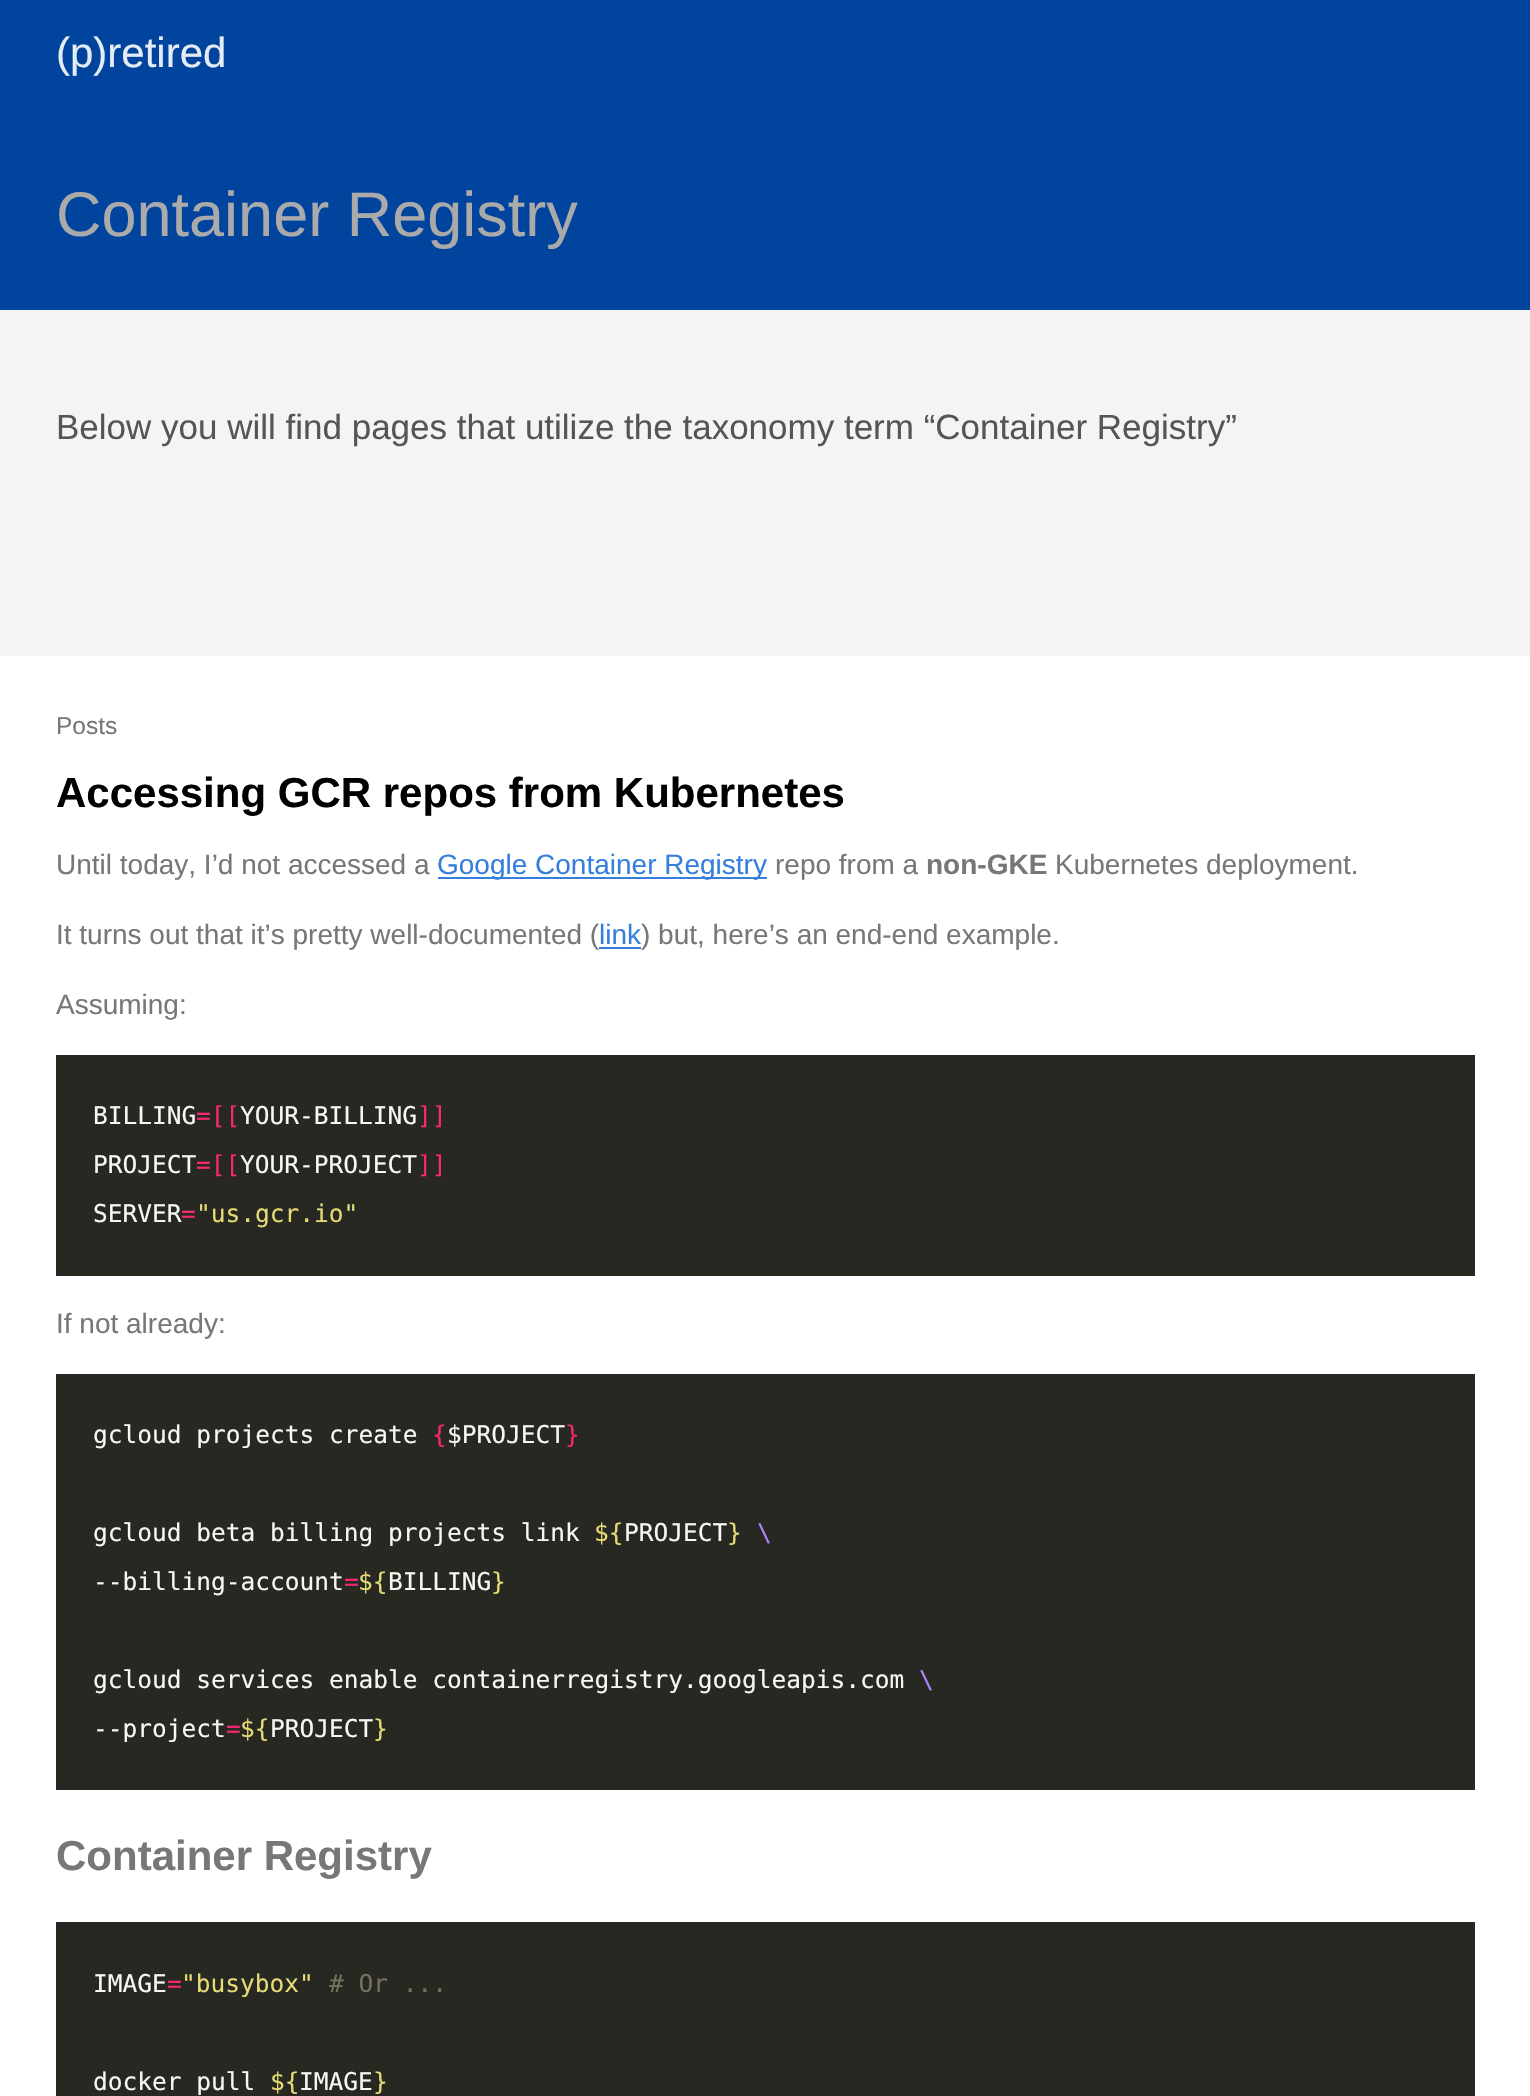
void draw(SkCanvas* canvas) {
    SkPaint paint;
    paint.setAntiAlias(true);
    auto face = [&](const char* family, int weight, float size, bool italic = false) {
        SkFontStyle style(weight, SkFontStyle::kNormal_Width,
            italic ? SkFontStyle::kItalic_Slant : SkFontStyle::kUpright_Slant);
        SkFont result(fontMgr->matchFamilyStyle(family, style), size);
        result.setSubpixel(true);
        return result;
    };
    auto write = [&](const char* s, float x, float y, const SkFont& font, SkColor color) {
        SkPaint ink(SkColor4f::FromColor(color));
        ink.setAntiAlias(true);
        canvas->drawString(s, x, y, font, ink);
    };
    auto block = [&](float x, float y, float w, float h, SkColor color) {
        SkPaint ink(SkColor4f::FromColor(color));
        ink.setAntiAlias(true);
        canvas->drawRect(SkRect::MakeXYWH(x, y, w, h), ink);
    };
    canvas->clear(SkColorSetRGB(244, 244, 244));
    block(0, 0, 1530, 310, SkColorSetRGB(0, 68, 158));
    auto kFont1 = face("Liberation Sans", 400, 42);
    write("(p)retired", 56, 67, kFont1, SkColorSetRGB(230, 236, 245));
    auto kFont2 = face("Liberation Sans", 400, 63);
    write("Container Registry", 56, 236, kFont2, SkColorSetRGB(170, 170, 170));
    auto kFont3 = face("Liberation Sans", 400, 35);
    write("Below you will find pages that utilize the taxonomy term “Container Registry”", 56, 439, kFont3, SkColorSetRGB(85, 85, 85));
    block(0, 656, 1530, 1440, SK_ColorWHITE);
    auto kFont4 = face("Liberation Sans", 400, 24.5f);
    write("Posts", 56, 734, kFont4, SkColorSetRGB(119, 119, 119));
    auto kFont5 = face("Liberation Sans", 700, 42);
    write("Accessing GCR repos from Kubernetes", 56, 807, kFont5, SK_ColorBLACK);
    auto kFont6 = face("Liberation Sans", 400, 28);
    write("Until today, I’d not accessed a", 56, 874, kFont6, SkColorSetRGB(119, 119, 119));
    block(438, 877, 329, 2, SkColorSetRGB(53, 126, 221));
    write("Google Container Registry", 437, 874, kFont6, SkColorSetRGB(53, 126, 221));
    write("repo from a", 775, 874, kFont6, SkColorSetRGB(119, 119, 119));
    auto kFont7 = face("Liberation Sans", 700, 28);
    write("non-GKE", 926, 874, kFont7, SkColorSetRGB(119, 119, 119));
    write("Kubernetes deployment.", 1055, 874, kFont6, SkColorSetRGB(119, 119, 119));
    write("It turns out that it’s pretty well-documented (", 56, 944, kFont6, SkColorSetRGB(119, 119, 119));
    write("link", 599, 944, kFont6, SkColorSetRGB(53, 126, 221));
    block(599, 947, 42, 2, SkColorSetRGB(53, 126, 221));
    write(") but, here’s an end-end example.", 641, 944, kFont6, SkColorSetRGB(119, 119, 119));
    write("Assuming:", 56, 1014, kFont6, SkColorSetRGB(119, 119, 119));
    block(56, 1055, 1419, 221, SkColorSetRGB(39, 40, 34));
    auto kFont8 = face("DejaVu Sans Mono", 400, 24.5f);
    write("BILLING", 93, 1124, kFont8, SkColorSetRGB(248, 248, 242));
    write("=[[", 196, 1124, kFont8, SkColorSetRGB(249, 38, 114));
    write("YOUR-BILLING", 240, 1124, kFont8, SkColorSetRGB(248, 248, 242));
    write("]]", 417, 1124, kFont8, SkColorSetRGB(249, 38, 114));
    write("PROJECT", 93, 1173, kFont8, SkColorSetRGB(248, 248, 242));
    write("=[[", 196, 1173, kFont8, SkColorSetRGB(249, 38, 114));
    write("YOUR-PROJECT", 240, 1173, kFont8, SkColorSetRGB(248, 248, 242));
    write("]]", 417, 1173, kFont8, SkColorSetRGB(249, 38, 114));
    write("SERVER", 93, 1222, kFont8, SkColorSetRGB(248, 248, 242));
    write("=", 181, 1222, kFont8, SkColorSetRGB(249, 38, 114));
    write("\"us.gcr.io\"", 196, 1222, kFont8, SkColorSetRGB(230, 219, 116));
    write("If not already:", 56, 1333, kFont6, SkColorSetRGB(119, 119, 119));
    block(56, 1374, 1419, 416, SkColorSetRGB(39, 40, 34));
    write("gcloud projects create", 93, 1443, kFont8, SkColorSetRGB(248, 248, 242));
    write("{", 432, 1443, kFont8, SkColorSetRGB(249, 38, 114));
    write("$PROJECT", 447, 1443, kFont8, SkColorSetRGB(248, 248, 242));
    write("}", 565, 1443, kFont8, SkColorSetRGB(249, 38, 114));
    write("gcloud beta billing projects link", 93, 1541, kFont8, SkColorSetRGB(248, 248, 242));
    write("${", 594, 1541, kFont8, SkColorSetRGB(230, 219, 116));
    write("PROJECT", 624, 1541, kFont8, SkColorSetRGB(248, 248, 242));
    write("}", 727, 1541, kFont8, SkColorSetRGB(230, 219, 116));
    write("\\", 757, 1541, kFont8, SkColorSetRGB(174, 129, 255));
    write("--billing-account", 93, 1590, kFont8, SkColorSetRGB(248, 248, 242));
    write("=", 344, 1590, kFont8, SkColorSetRGB(249, 38, 114));
    write("${", 358, 1590, kFont8, SkColorSetRGB(230, 219, 116));
    write("BILLING", 388, 1590, kFont8, SkColorSetRGB(248, 248, 242));
    write("}", 491, 1590, kFont8, SkColorSetRGB(230, 219, 116));
    write("gcloud services enable containerregistry.googleapis.com", 93, 1688, kFont8, SkColorSetRGB(248, 248, 242));
    write("\\", 919, 1688, kFont8, SkColorSetRGB(174, 129, 255));
    write("--project", 93, 1737, kFont8, SkColorSetRGB(248, 248, 242));
    write("=", 226, 1737, kFont8, SkColorSetRGB(249, 38, 114));
    write("${", 240, 1737, kFont8, SkColorSetRGB(230, 219, 116));
    write("PROJECT", 270, 1737, kFont8, SkColorSetRGB(248, 248, 242));
    write("}", 373, 1737, kFont8, SkColorSetRGB(230, 219, 116));
    write("Container Registry", 56, 1870, kFont5, SkColorSetRGB(119, 119, 119));
    block(56, 1922, 1419, 174, SkColorSetRGB(39, 40, 34));
    write("IMAGE", 93, 1992, kFont8, SkColorSetRGB(248, 248, 242));
    write("=", 167, 1992, kFont8, SkColorSetRGB(249, 38, 114));
    write("\"busybox\"", 181, 1992, kFont8, SkColorSetRGB(230, 219, 116));
    write("# Or ...", 329, 1992, kFont8, SkColorSetRGB(117, 113, 94));
    write("docker pull", 93, 2090, kFont8, SkColorSetRGB(248, 248, 242));
    write("${", 270, 2090, kFont8, SkColorSetRGB(230, 219, 116));
    write("IMAGE", 299, 2090, kFont8, SkColorSetRGB(248, 248, 242));
    write("}", 373, 2090, kFont8, SkColorSetRGB(230, 219, 116));
}
